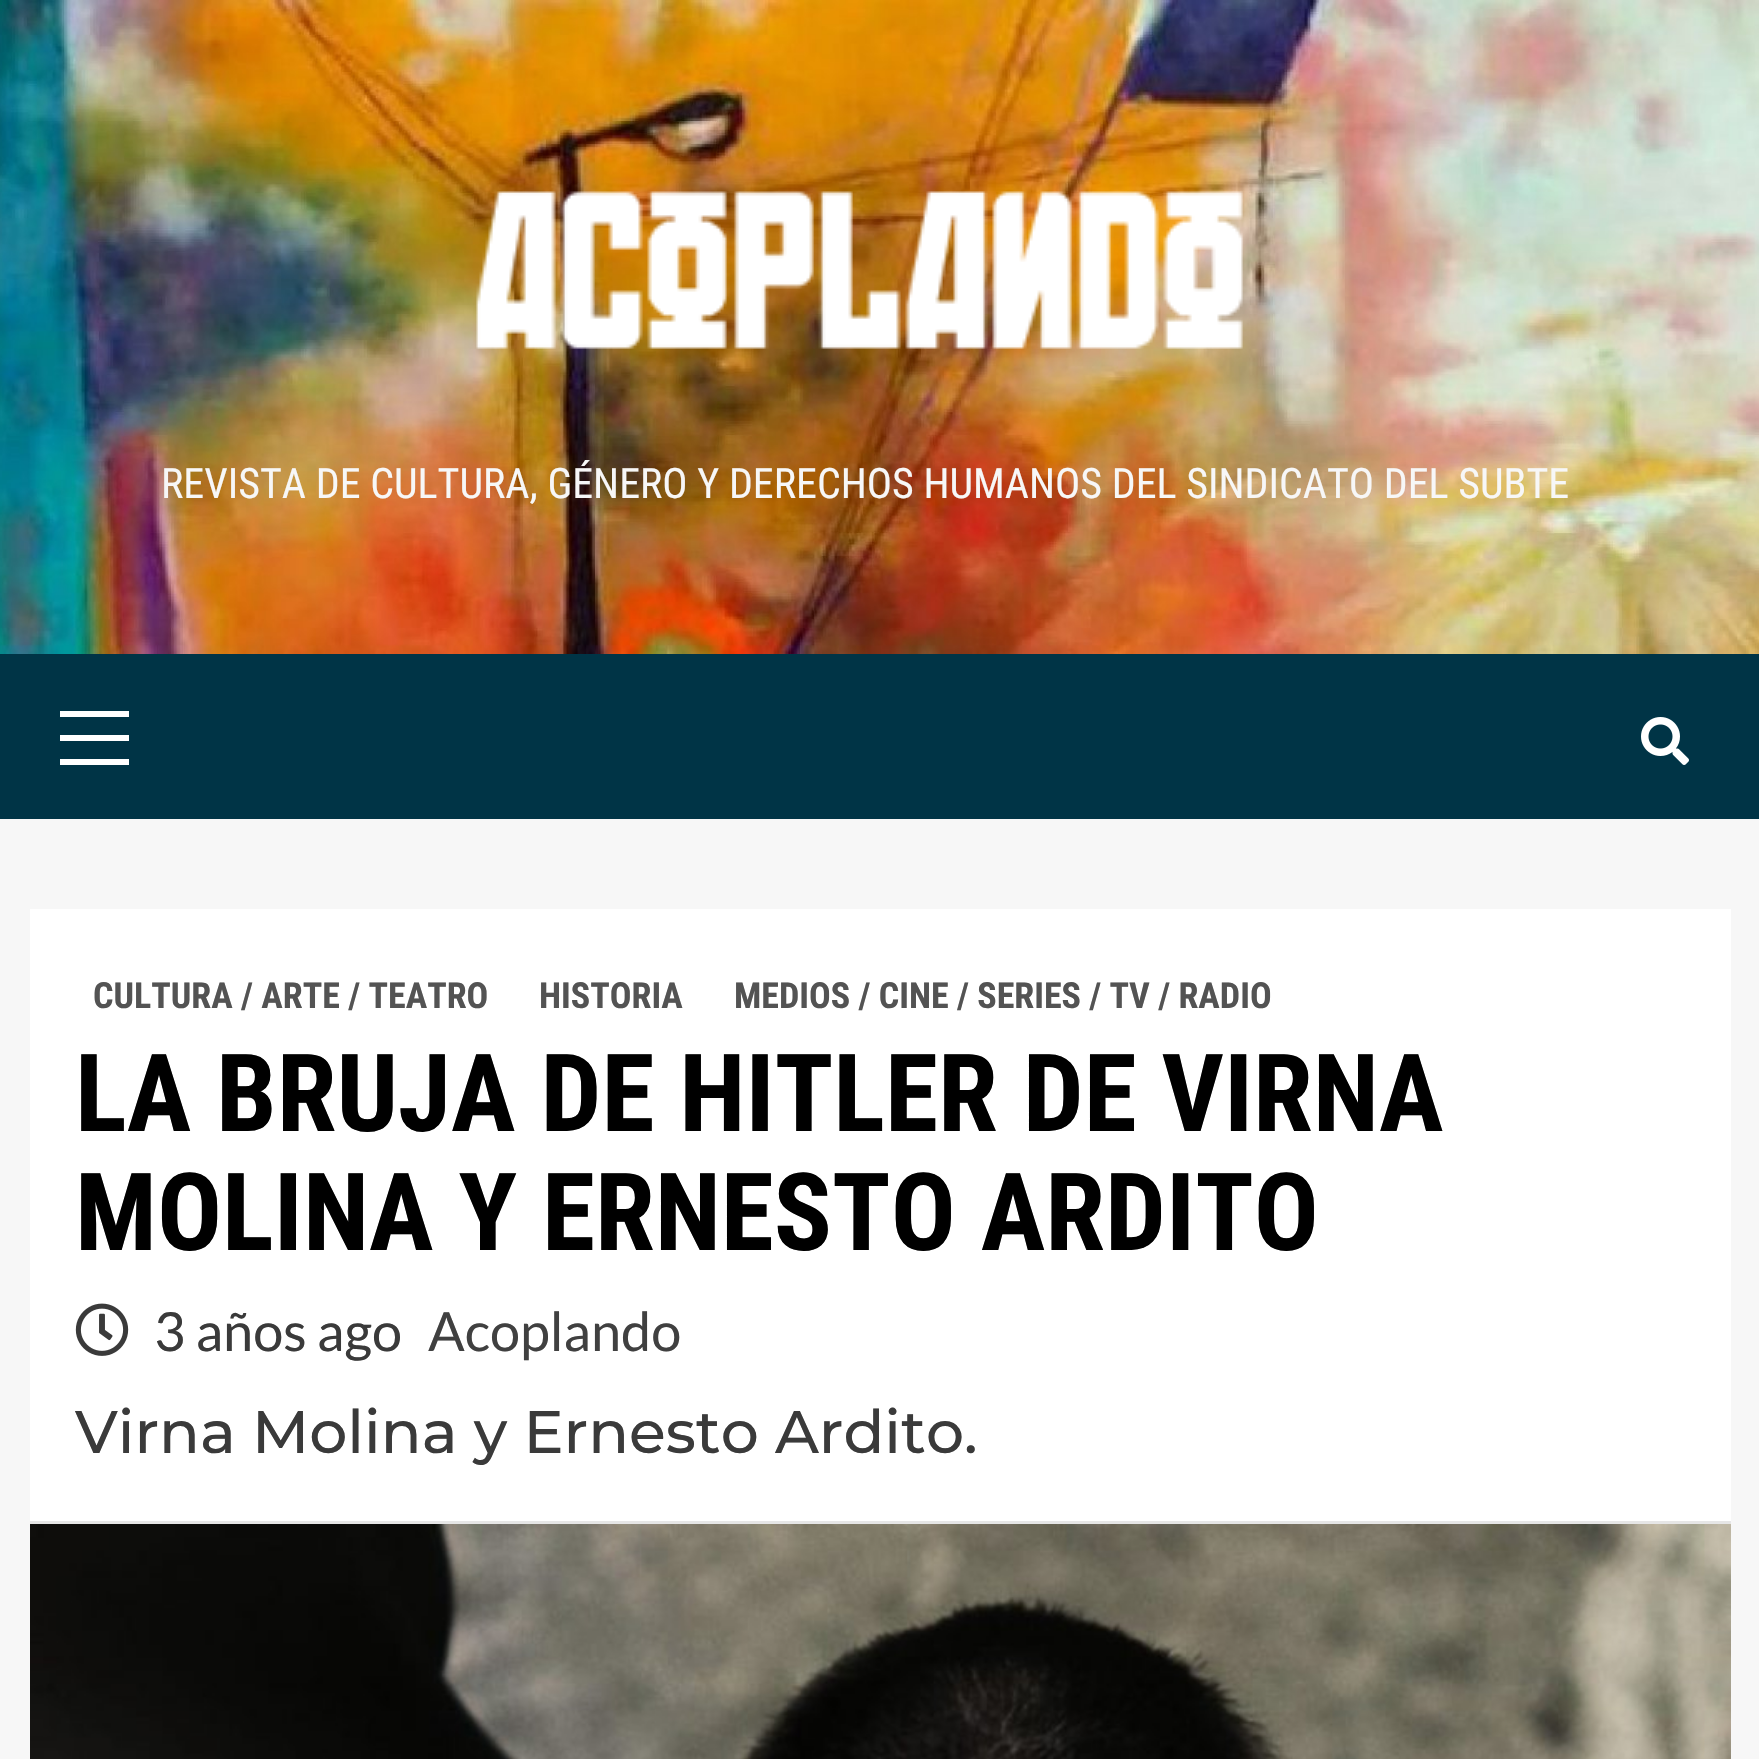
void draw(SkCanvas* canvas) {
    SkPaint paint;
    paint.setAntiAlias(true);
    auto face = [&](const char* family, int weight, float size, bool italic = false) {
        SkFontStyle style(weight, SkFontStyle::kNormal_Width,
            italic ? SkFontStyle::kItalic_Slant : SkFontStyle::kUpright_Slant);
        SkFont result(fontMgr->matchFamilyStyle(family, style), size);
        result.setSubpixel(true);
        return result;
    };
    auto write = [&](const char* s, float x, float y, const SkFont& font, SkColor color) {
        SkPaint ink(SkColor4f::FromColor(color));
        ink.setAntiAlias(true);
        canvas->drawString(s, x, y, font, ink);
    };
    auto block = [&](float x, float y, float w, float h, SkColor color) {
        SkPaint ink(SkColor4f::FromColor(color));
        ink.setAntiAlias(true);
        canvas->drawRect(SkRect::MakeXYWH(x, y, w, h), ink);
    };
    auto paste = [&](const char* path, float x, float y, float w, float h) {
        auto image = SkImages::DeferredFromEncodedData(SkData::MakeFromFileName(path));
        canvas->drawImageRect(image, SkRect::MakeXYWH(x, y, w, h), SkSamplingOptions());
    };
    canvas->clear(SkColorSetRGB(247, 247, 247));
    paste("pic1.png", 0, 0, 1759, 654);
    paste("pic2.png", 476, 191, 767, 158);
    auto kFont1 = face("Roboto Condensed", 400, 42);
    write("REVISTA DE CULTURA, GÉNERO Y DERECHOS HUMANOS DEL SINDICATO DEL SUBTE", 161, 498, kFont1, SkColorSetRGB(247, 247, 247));
    block(0, 654, 1759, 165, SkColorSetRGB(0, 52, 70));
    block(60, 735, 69, 6, SK_ColorWHITE);
    block(60, 711, 69, 6, SK_ColorWHITE);
    block(60, 759, 69, 6, SK_ColorWHITE);
    paste("pic3.png", 1641, 717, 48, 48);
    block(30, 909, 1701, 612, SK_ColorWHITE);
    block(30, 1521, 1701, 3, SkColorSetRGB(230, 230, 230));
    auto kFont2 = face("Roboto Condensed", 700, 36);
    write("CULTURA / ARTE / TEATRO", 93, 1008, kFont2, SkColorSetRGB(83, 83, 83));
    write("HISTORIA", 539, 1008, kFont2, SkColorSetRGB(83, 83, 83));
    write("MEDIOS / CINE / SERIES / TV / RADIO", 734, 1008, kFont2, SkColorSetRGB(83, 83, 83));
    auto kFont3 = face("Roboto Condensed", 700, 108);
    write("LA BRUJA DE HITLER DE VIRNA", 75, 1131, kFont3, SK_ColorBLACK);
    write("MOLINA Y ERNESTO ARDITO", 75, 1250, kFont3, SK_ColorBLACK);
    paste("pic4.png", 75, 1303, 54, 53);
    auto kFont4 = face("Lato", 400, 54);
    write("3 años ago", 154, 1351, kFont4, SkColorSetRGB(58, 58, 58));
    write("Acoplando", 428, 1351, kFont4, SkColorSetRGB(64, 64, 64));
    auto kFont5 = face("Montserrat", 100, 60);
    write("Virna Molina y Ernesto Ardito.", 75, 1453, kFont5, SkColorSetRGB(58, 58, 58));
    paste("pic5.png", 30, 1524, 1701, 235);
}
